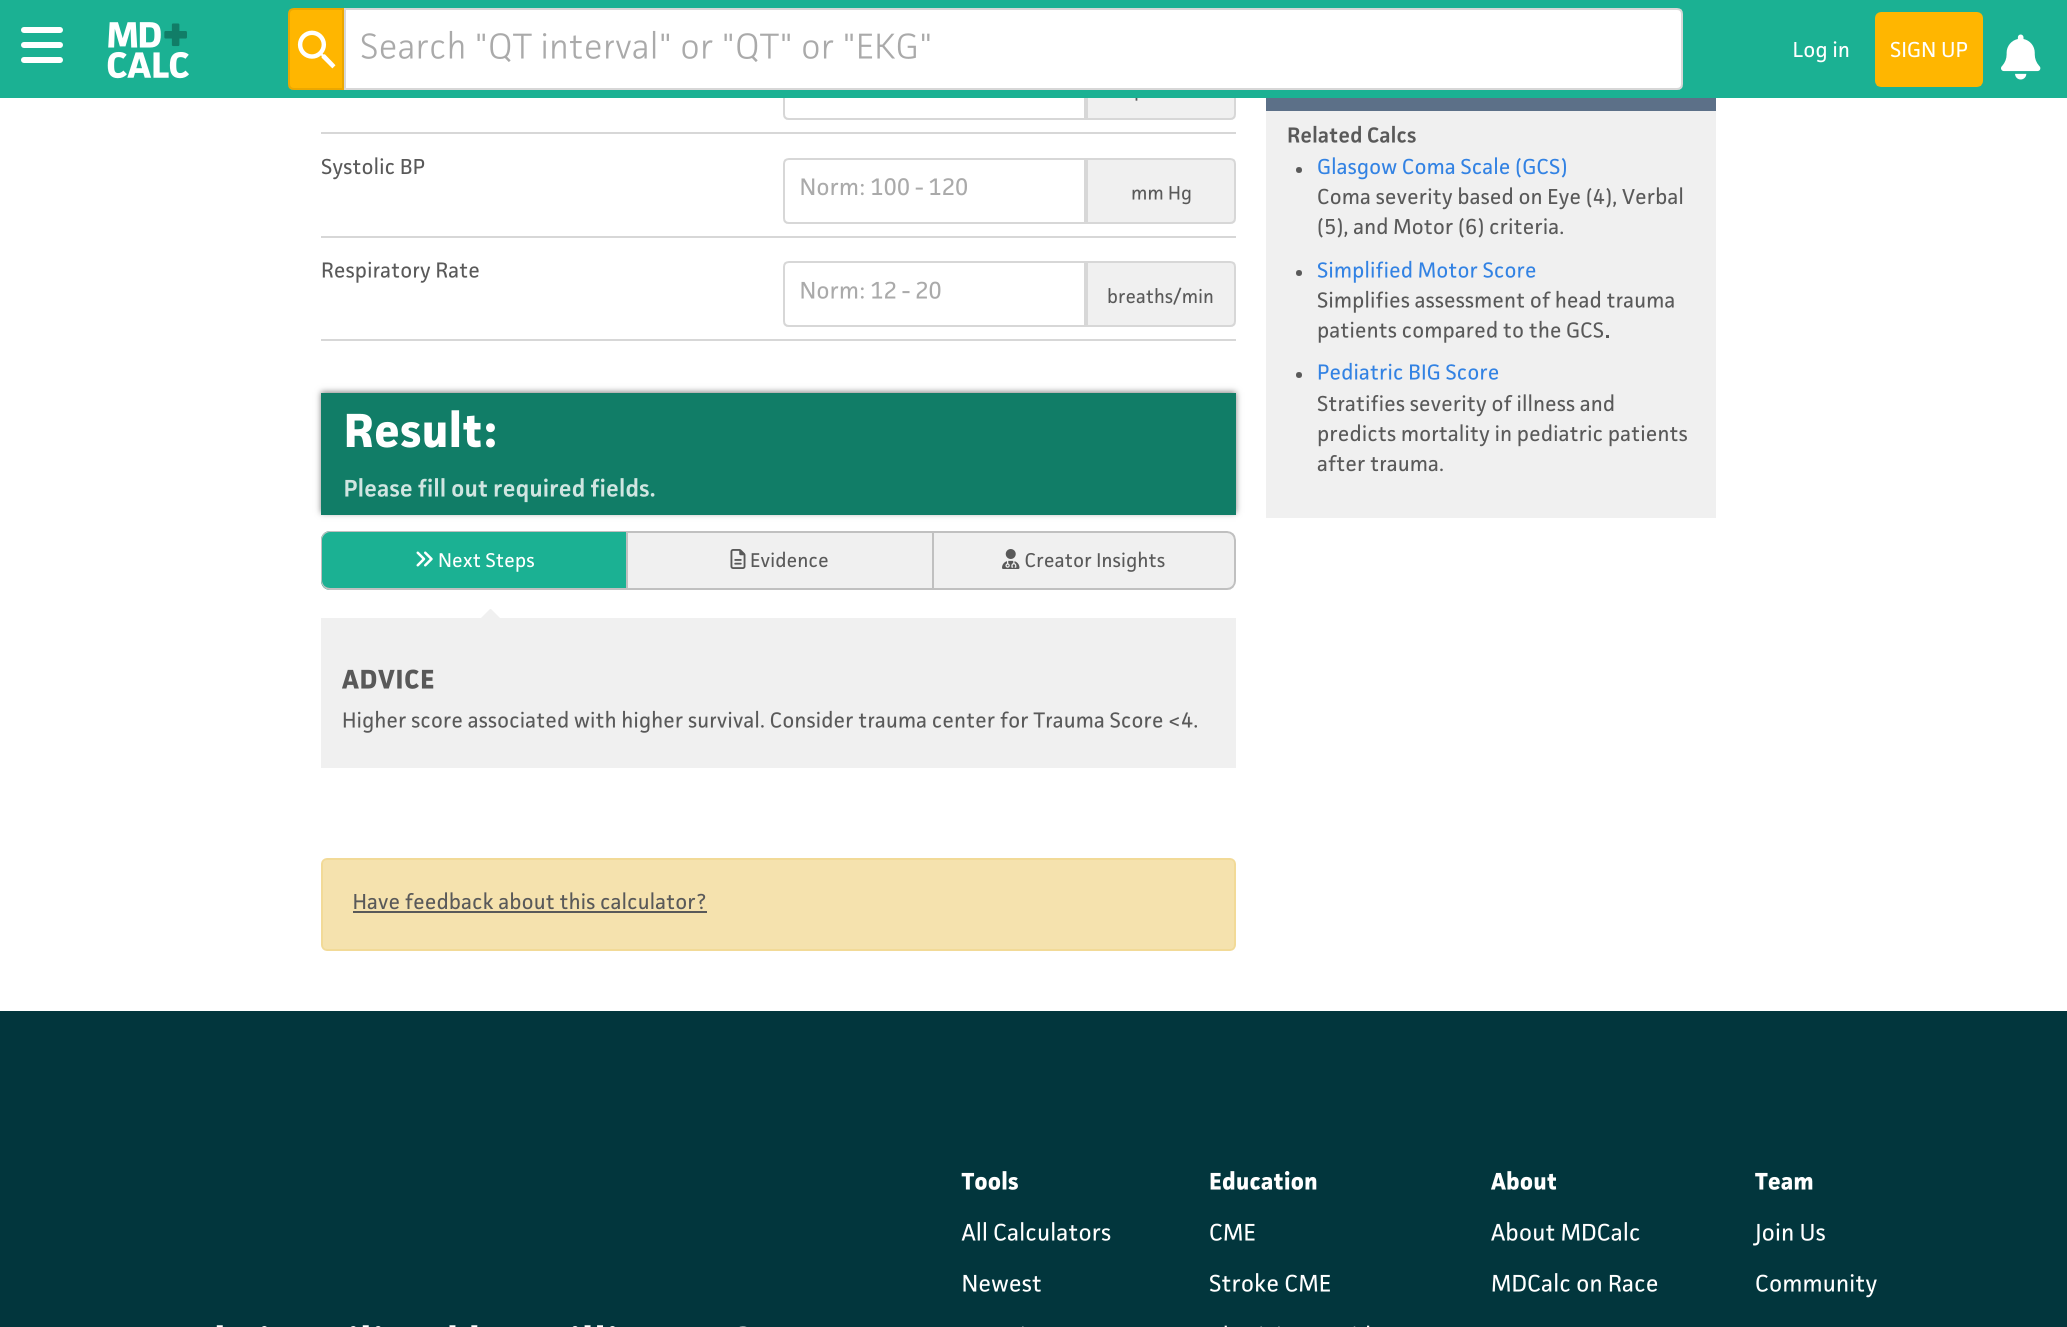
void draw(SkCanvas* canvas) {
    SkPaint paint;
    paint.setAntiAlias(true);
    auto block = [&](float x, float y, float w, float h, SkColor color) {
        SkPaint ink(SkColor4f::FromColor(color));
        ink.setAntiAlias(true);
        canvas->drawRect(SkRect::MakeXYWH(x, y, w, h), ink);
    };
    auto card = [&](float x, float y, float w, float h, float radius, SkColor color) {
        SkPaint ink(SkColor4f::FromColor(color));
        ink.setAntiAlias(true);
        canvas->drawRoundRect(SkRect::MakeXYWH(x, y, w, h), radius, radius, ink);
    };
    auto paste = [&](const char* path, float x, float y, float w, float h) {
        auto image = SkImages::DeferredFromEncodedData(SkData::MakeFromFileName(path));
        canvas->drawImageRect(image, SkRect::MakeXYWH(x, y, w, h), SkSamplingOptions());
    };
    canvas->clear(SK_ColorWHITE);
    paint.setStyle(SkPaint::kStroke_Style);
    paint.setStrokeWidth(2);
    paint.setColor(SkColorSetRGB(215, 215, 215));
    canvas->drawPath(SkPathBuilder().moveTo(789, 55).lineTo(1085, 55).lineTo(1085, 119).lineTo(789, 119).cubicTo(786, 119, 784, 117, 784, 114).lineTo(784, 60).cubicTo(784, 57, 786, 55, 789, 55).close().detach(), paint);
    paint.setStyle(SkPaint::kFill_Style);
    paint.setColor(SkColorSetRGB(240, 240, 240));
    canvas->drawPath(SkPathBuilder().moveTo(1087, 55).lineTo(1230, 55).cubicTo(1233, 55, 1235, 57, 1235, 60).lineTo(1235, 114).cubicTo(1235, 117, 1233, 119, 1230, 119).lineTo(1087, 119).close().detach(), paint);
    paint.setStyle(SkPaint::kStroke_Style);
    paint.setColor(SkColorSetRGB(215, 215, 215));
    canvas->drawPath(SkPathBuilder().moveTo(1087, 55).lineTo(1230, 55).cubicTo(1233, 55, 1235, 57, 1235, 60).lineTo(1235, 114).cubicTo(1235, 117, 1233, 119, 1230, 119).lineTo(1087, 119).close().detach(), paint);
    block(0, 0, 2067, 98, SkColorSetRGB(27, 177, 147));
    paste("pic1.png", 21, 27, 42, 36);
    paste("pic2.png", 107, 22, 82, 57);
    paint.setStyle(SkPaint::kFill_Style);
    paint.setColor(SkColorSetRGB(255, 182, 0));
    canvas->drawPath(SkPathBuilder().moveTo(294, 9).lineTo(343, 9).lineTo(343, 89).lineTo(294, 89).cubicTo(291, 89, 289, 87, 289, 84).lineTo(289, 14).cubicTo(289, 11, 291, 9, 294, 9).close().detach(), paint);
    paint.setStyle(SkPaint::kStroke_Style);
    paint.setColor(SkColorSetRGB(235, 167, 0));
    canvas->drawPath(SkPathBuilder().moveTo(294, 9).lineTo(343, 9).lineTo(343, 89).lineTo(294, 89).cubicTo(291, 89, 289, 87, 289, 84).lineTo(289, 14).cubicTo(289, 11, 291, 9, 294, 9).close().detach(), paint);
    paste("pic3.png", 297, 30, 39, 39);
    paint.setStyle(SkPaint::kFill_Style);
    paint.setColor(SK_ColorWHITE);
    canvas->drawPath(SkPathBuilder().moveTo(345, 9).lineTo(1677, 9).cubicTo(1680, 9, 1682, 11, 1682, 14).lineTo(1682, 84).cubicTo(1682, 87, 1680, 89, 1677, 89).lineTo(345, 89).close().detach(), paint);
    paint.setStyle(SkPaint::kStroke_Style);
    paint.setColor(SkColorSetRGB(215, 215, 215));
    canvas->drawPath(SkPathBuilder().moveTo(345, 9).lineTo(1677, 9).cubicTo(1680, 9, 1682, 11, 1682, 14).lineTo(1682, 84).cubicTo(1682, 87, 1680, 89, 1677, 89).lineTo(345, 89).close().detach(), paint);
    paste("pic4.png", 361, 30, 569, 32);
    paste("pic5.png", 1794, 41, 55, 22);
    card(1875, 12, 108, 75, 6, SkColorSetRGB(255, 182, 0));
    paste("pic6.png", 1890, 41, 78, 17);
    paste("pic7.png", 2001, 34, 40, 46);
    block(321, 132, 915, 2, SkColorSetRGB(215, 215, 215));
    paste("pic8.png", 1135, 98, 3, 3);
    block(321, 236, 915, 2, SkColorSetRGB(215, 215, 215));
    paste("pic9.png", 321, 157, 104, 23);
    canvas->drawPath(SkPathBuilder().moveTo(789, 159).lineTo(1085, 159).lineTo(1085, 223).lineTo(789, 223).cubicTo(786, 223, 784, 221, 784, 218).lineTo(784, 164).cubicTo(784, 161, 786, 159, 789, 159).close().detach(), paint);
    paste("pic10.png", 801, 178, 166, 18);
    paint.setStyle(SkPaint::kFill_Style);
    paint.setColor(SkColorSetRGB(240, 240, 240));
    canvas->drawPath(SkPathBuilder().moveTo(1087, 159).lineTo(1230, 159).cubicTo(1233, 159, 1235, 161, 1235, 164).lineTo(1235, 218).cubicTo(1235, 221, 1233, 223, 1230, 223).lineTo(1087, 223).close().detach(), paint);
    paint.setStyle(SkPaint::kStroke_Style);
    paint.setColor(SkColorSetRGB(215, 215, 215));
    canvas->drawPath(SkPathBuilder().moveTo(1087, 159).lineTo(1230, 159).cubicTo(1233, 159, 1235, 161, 1235, 164).lineTo(1235, 218).cubicTo(1235, 221, 1233, 223, 1230, 223).lineTo(1087, 223).close().detach(), paint);
    paste("pic11.png", 1132, 186, 59, 19);
    block(321, 339, 915, 2, SkColorSetRGB(215, 215, 215));
    paste("pic12.png", 322, 261, 157, 22);
    canvas->drawPath(SkPathBuilder().moveTo(789, 262).lineTo(1085, 262).lineTo(1085, 326).lineTo(789, 326).cubicTo(786, 326, 784, 324, 784, 321).lineTo(784, 267).cubicTo(784, 264, 786, 262, 789, 262).close().detach(), paint);
    paste("pic13.png", 801, 281, 140, 18);
    paint.setStyle(SkPaint::kFill_Style);
    paint.setColor(SkColorSetRGB(240, 240, 240));
    canvas->drawPath(SkPathBuilder().moveTo(1087, 262).lineTo(1230, 262).cubicTo(1233, 262, 1235, 264, 1235, 267).lineTo(1235, 321).cubicTo(1235, 324, 1233, 326, 1230, 326).lineTo(1087, 326).close().detach(), paint);
    paint.setStyle(SkPaint::kStroke_Style);
    paint.setColor(SkColorSetRGB(215, 215, 215));
    canvas->drawPath(SkPathBuilder().moveTo(1087, 262).lineTo(1230, 262).cubicTo(1233, 262, 1235, 264, 1235, 267).lineTo(1235, 321).cubicTo(1235, 324, 1233, 326, 1230, 326).lineTo(1087, 326).close().detach(), paint);
    paste("pic14.png", 1108, 287, 105, 18);
    paint.setStyle(SkPaint::kFill_Style);
    paint.setColor(SkColorSetARGB(128, 0, 0, 0));
    paint.setMaskFilter(SkMaskFilter::MakeBlur(kNormal_SkBlurStyle, 3));
    canvas->drawRect(SkRect::MakeXYWH(321, 392, 915, 121), paint);
    paint.setMaskFilter(nullptr);
    block(321, 393, 915, 122, SkColorSetRGB(17, 125, 103));
    paste("pic15.png", 346, 410, 149, 38);
    paste("pic16.png", 345, 478, 310, 25);
    paint.setColor(SkColorSetRGB(27, 177, 147));
    canvas->drawPath(SkPathBuilder().moveTo(330, 531).lineTo(626, 531).lineTo(626, 590).lineTo(330, 590).cubicTo(325, 590, 321, 586, 321, 581).lineTo(321, 540).cubicTo(321, 535, 325, 531, 330, 531).close().detach(), paint);
    paint.setColor(SkColorSetRGB(192, 192, 192));
    canvas->drawPath(SkPathBuilder(SkPathFillType::kEvenOdd).moveTo(330, 531).lineTo(626, 531).lineTo(626, 590).lineTo(330, 590).cubicTo(325, 590, 321, 585, 321, 580).lineTo(321, 540).cubicTo(321, 535, 325, 531, 330, 531).close().moveTo(330, 532).lineTo(626, 532).lineTo(626, 588).lineTo(330, 588).cubicTo(326, 588, 322, 585, 322, 580).lineTo(322, 540).cubicTo(322, 536, 326, 532, 330, 532).close().detach(), paint);
    paste("pic17.png", 416, 551, 17, 16);
    paste("pic18.png", 439, 553, 95, 19);
    block(628, 533, 304, 55, SkColorSetRGB(240, 240, 240));
    block(626, 531, 306, 2, SkColorSetRGB(192, 192, 192));
    block(626, 588, 306, 2, SkColorSetRGB(192, 192, 192));
    block(626, 531, 2, 59, SkColorSetRGB(192, 192, 192));
    paste("pic19.png", 730, 549, 16, 20);
    paste("pic20.png", 751, 551, 77, 17);
    paint.setColor(SkColorSetRGB(240, 240, 240));
    canvas->drawPath(SkPathBuilder().moveTo(933, 532).lineTo(1227, 532).cubicTo(1231.5f, 532, 1235, 535.5f, 1235, 540).lineTo(1235, 581).cubicTo(1235, 585.5f, 1231.5f, 589, 1227, 589).lineTo(933, 589).close().detach(), paint);
    paint.setStyle(SkPaint::kStroke_Style);
    paint.setColor(SkColorSetRGB(192, 192, 192));
    canvas->drawPath(SkPathBuilder().moveTo(933, 532).lineTo(1227, 532).cubicTo(1231.5f, 532, 1235, 535.5f, 1235, 540).lineTo(1235, 581).cubicTo(1235, 585.5f, 1231.5f, 589, 1227, 589).lineTo(933, 589).close().detach(), paint);
    paste("pic21.png", 1002, 549, 18, 20);
    paste("pic22.png", 1025, 551, 140, 21);
    block(321, 618, 915, 150, SkColorSetRGB(240, 240, 240));
    paint.setStyle(SkPaint::kFill_Style);
    paint.setColor(SkColorSetRGB(240, 240, 240));
    canvas->drawPath(SkPathBuilder().moveTo(500, 618).lineTo(481, 618).lineTo(490, 609).lineTo(491, 609).close().detach(), paint);
    paste("pic23.png", 342, 669, 92, 20);
    paste("pic24.png", 343, 710, 854, 23);
    paint.setColor(SkColorSetRGB(245, 226, 174));
    canvas->drawRoundRect(SkRect::MakeXYWH(322, 859, 913, 91), 5, 5, paint);
    paint.setStyle(SkPaint::kStroke_Style);
    paint.setColor(SkColorSetRGB(242, 218, 151));
    canvas->drawRoundRect(SkRect::MakeXYWH(322, 859, 913, 91), 5, 5, paint);
    paste("pic25.png", 354, 892, 352, 18);
    block(353, 911, 354, 2, SkColorSetRGB(89, 89, 89));
    block(1266, 111, 450, 407, SkColorSetRGB(240, 240, 240));
    block(1266, 98, 450, 13, SkColorSetRGB(92, 112, 136));
    paste("pic26.png", 1288, 125, 128, 18);
    paint.setStyle(SkPaint::kFill_Style);
    paint.setColor(SkColorSetRGB(89, 89, 89));
    canvas->drawCircle(1299, 170, 3, paint);
    paste("pic27.png", 1318, 157, 248, 23);
    paste("pic28.png", 1318, 187, 365, 23);
    paste("pic29.png", 1318, 217, 245, 21);
    canvas->drawCircle(1299, 273, 3, paint);
    paste("pic30.png", 1317, 260, 219, 23);
    paste("pic31.png", 1317, 290, 357, 23);
    paste("pic32.png", 1318, 320, 243, 23);
    paste("pic33.png", 1567, 322, 37, 16);
    block(1606, 335, 3, 3, SkColorSetRGB(89, 89, 89));
    canvas->drawCircle(1299, 375, 3, paint);
    paste("pic34.png", 1318, 362, 181, 18);
    paste("pic35.png", 1317, 394, 297, 23);
    paste("pic36.png", 1318, 424, 369, 23);
    paste("pic37.png", 1317, 455, 126, 17);
    block(0, 1011, 2067, 316, SkColorSetRGB(2, 54, 61));
    paste("pic38.png", 216, 1325, 531, 2);
    paste("pic39.png", 961, 1171, 57, 19);
    paste("pic40.png", 961, 1222, 150, 19);
    paste("pic41.png", 963, 1274, 78, 18);
    paste("pic42.png", 1022, 1326, 2, 1);
    paste("pic43.png", 1210, 1171, 107, 19);
    paste("pic44.png", 1210, 1223, 45, 18);
    paste("pic45.png", 1209, 1273, 121, 19);
    paste("pic46.png", 1224, 1325, 146, 2);
    paste("pic47.png", 1491, 1171, 66, 19);
    paste("pic48.png", 1491, 1222, 149, 19);
    paste("pic49.png", 1492, 1273, 166, 19);
    paste("pic50.png", 1755, 1172, 58, 18);
    paste("pic51.png", 1753, 1223, 72, 23);
    paste("pic52.png", 1756, 1274, 121, 24);
}
